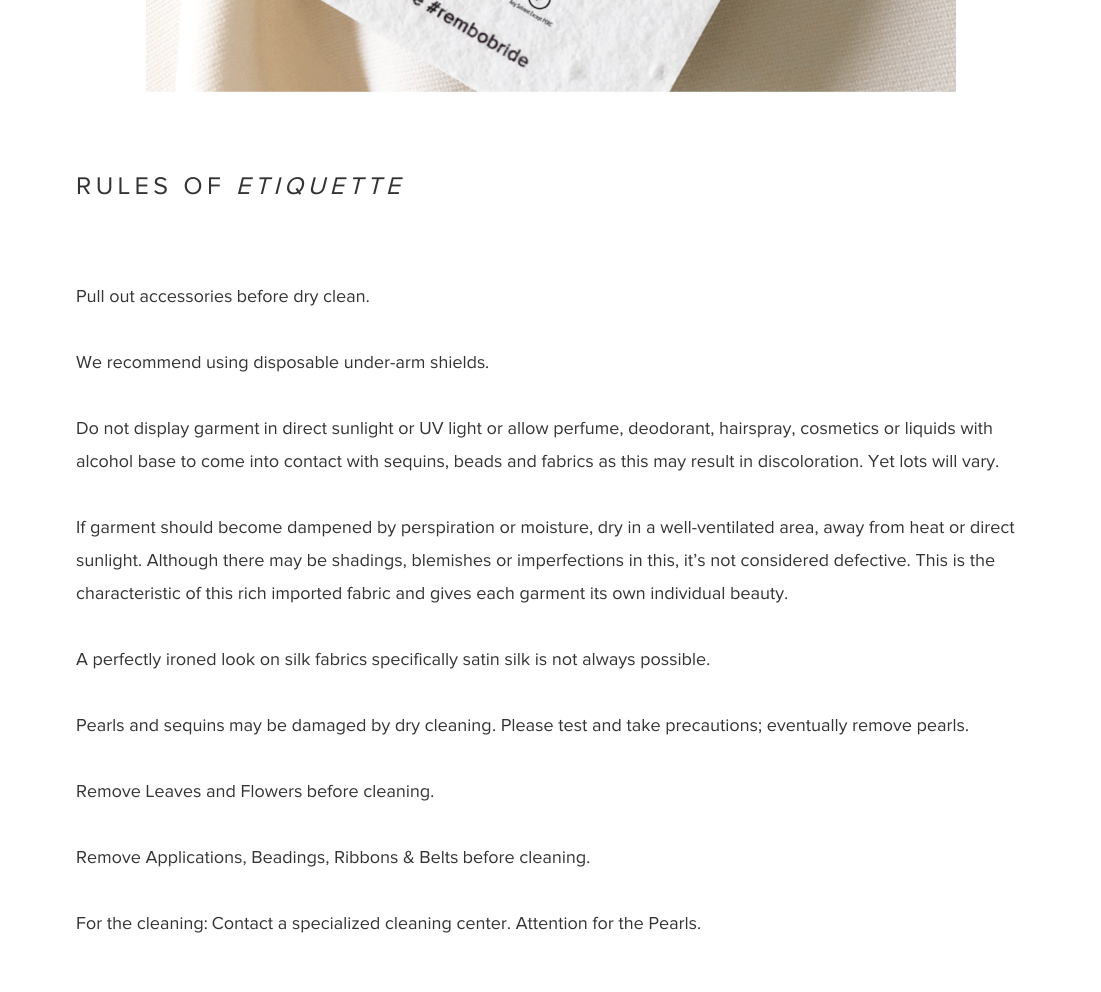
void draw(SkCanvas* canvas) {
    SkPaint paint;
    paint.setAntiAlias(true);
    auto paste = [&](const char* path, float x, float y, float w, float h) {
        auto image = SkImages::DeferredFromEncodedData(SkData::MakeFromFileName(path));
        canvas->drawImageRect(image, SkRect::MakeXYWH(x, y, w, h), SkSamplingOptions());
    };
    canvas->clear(SK_ColorWHITE);
    paste("pic1.png", 146, 0, 810, 92);
    paste("pic2.png", 77, 177, 143, 18);
    paste("pic3.png", 238, 177, 165, 18);
    paste("pic4.png", 77, 290, 155, 13);
    paste("pic5.png", 238, 289, 131, 17);
    paste("pic6.png", 76, 356, 125, 13);
    paste("pic7.png", 207, 356, 278, 16);
    paste("pic8.png", 486, 366, 2, 3);
    paste("pic9.png", 77, 422, 183, 16);
    paste("pic10.png", 264, 421, 728, 17);
    paste("pic11.png", 76, 454, 923, 17);
    paste("pic12.png", 77, 520, 516, 17);
    paste("pic13.png", 598, 520, 417, 17);
    paste("pic14.png", 76, 553, 919, 17);
    paste("pic15.png", 76, 586, 712, 17);
    paste("pic16.png", 76, 652, 291, 17);
    paste("pic17.png", 372, 652, 338, 17);
    paste("pic18.png", 77, 719, 147, 16);
    paste("pic19.png", 230, 719, 261, 16);
    paste("pic20.png", 493, 719, 475, 16);
    paste("pic21.png", 77, 785, 225, 13);
    paste("pic22.png", 308, 784, 126, 17);
    paste("pic23.png", 77, 850, 381, 17);
    paste("pic22.png", 464, 850, 126, 17);
    paste("pic24.png", 77, 917, 130, 16);
    paste("pic25.png", 212, 916, 488, 17);
}
